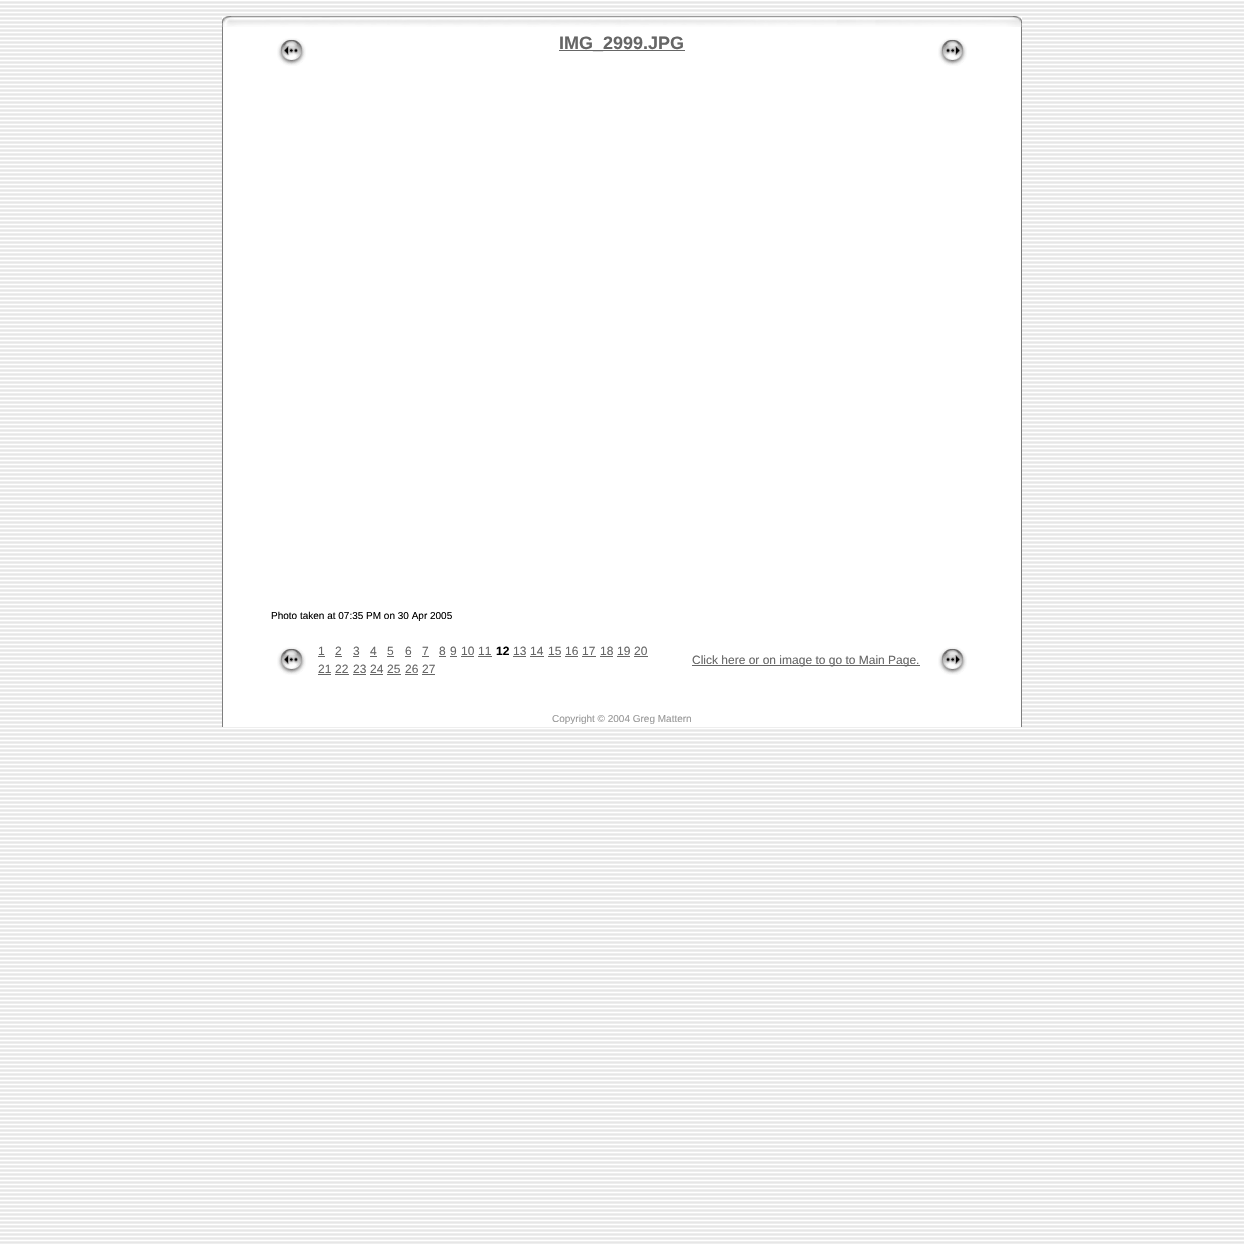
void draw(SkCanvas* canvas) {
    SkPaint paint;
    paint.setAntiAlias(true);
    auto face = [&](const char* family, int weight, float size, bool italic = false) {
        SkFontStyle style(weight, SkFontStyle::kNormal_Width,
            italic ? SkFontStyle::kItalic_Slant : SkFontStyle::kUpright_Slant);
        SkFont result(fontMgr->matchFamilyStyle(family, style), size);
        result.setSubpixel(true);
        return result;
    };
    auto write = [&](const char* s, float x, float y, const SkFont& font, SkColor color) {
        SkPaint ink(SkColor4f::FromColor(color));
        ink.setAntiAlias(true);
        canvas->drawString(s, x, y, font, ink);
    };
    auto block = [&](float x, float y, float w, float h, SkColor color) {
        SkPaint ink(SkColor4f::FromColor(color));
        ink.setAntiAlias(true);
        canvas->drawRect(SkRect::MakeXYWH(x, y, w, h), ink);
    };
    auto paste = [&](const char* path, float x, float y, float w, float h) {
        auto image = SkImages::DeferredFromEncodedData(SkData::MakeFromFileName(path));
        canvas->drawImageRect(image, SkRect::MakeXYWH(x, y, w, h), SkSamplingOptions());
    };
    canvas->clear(SK_ColorWHITE);
    paste("pic1.png", 0, 1, 1244, 1243);
    paste("pic2.png", 222, 17, 1, 13);
    paste("pic3.png", 223, 16, 798, 14);
    paste("pic4.png", 1021, 17, 1, 13);
    block(222, 30, 1, 697, SkColorSetRGB(126, 126, 126));
    block(223, 30, 798, 697, SK_ColorWHITE);
    paste("pic5.png", 277, 38, 29, 28);
    block(559, 50, 126, 1, SkColorSetRGB(102, 102, 102));
    auto kFont1 = face("Liberation Sans", 700, 18);
    write("IMG_2999.JPG", 559, 49, kFont1, SkColorSetRGB(102, 102, 102));
    paste("pic6.png", 938, 38, 29, 28);
    auto kFont2 = face("Liberation Sans", 400, 10);
    write("Photo taken at 07:35 PM on 30 Apr 2005", 271, 619, kFont2, SK_ColorBLACK);
    paste("pic5.png", 277, 647, 29, 28);
    auto kFont3 = face("Liberation Sans", 400, 12);
    write("1", 318, 655, kFont3, SkColorSetRGB(102, 102, 102));
    block(318, 656, 7, 1, SkColorSetRGB(102, 102, 102));
    write("2", 335, 655, kFont3, SkColorSetRGB(102, 102, 102));
    block(335, 656, 7, 1, SkColorSetRGB(102, 102, 102));
    write("3", 353, 655, kFont3, SkColorSetRGB(102, 102, 102));
    block(353, 656, 6, 1, SkColorSetRGB(102, 102, 102));
    write("4", 370, 655, kFont3, SkColorSetRGB(102, 102, 102));
    block(370, 656, 7, 1, SkColorSetRGB(102, 102, 102));
    write("5", 387, 655, kFont3, SkColorSetRGB(102, 102, 102));
    block(387, 656, 7, 1, SkColorSetRGB(102, 102, 102));
    write("6", 405, 655, kFont3, SkColorSetRGB(102, 102, 102));
    block(405, 656, 6, 1, SkColorSetRGB(102, 102, 102));
    write("7", 422, 655, kFont3, SkColorSetRGB(102, 102, 102));
    block(422, 656, 7, 1, SkColorSetRGB(102, 102, 102));
    write("8", 439, 655, kFont3, SkColorSetRGB(102, 102, 102));
    block(439, 656, 7, 1, SkColorSetRGB(102, 102, 102));
    write("9", 450, 655, kFont3, SkColorSetRGB(102, 102, 102));
    block(450, 656, 7, 1, SkColorSetRGB(102, 102, 102));
    write("10", 461, 655, kFont3, SkColorSetRGB(102, 102, 102));
    block(461, 656, 13, 1, SkColorSetRGB(102, 102, 102));
    write("11", 478, 655, kFont3, SkColorSetRGB(102, 102, 102));
    block(478, 656, 14, 1, SkColorSetRGB(102, 102, 102));
    auto kFont4 = face("Liberation Sans", 700, 12);
    write("12", 496, 655, kFont4, SK_ColorBLACK);
    write("13", 513, 655, kFont3, SkColorSetRGB(102, 102, 102));
    block(513, 656, 13, 1, SkColorSetRGB(102, 102, 102));
    write("14", 530, 655, kFont3, SkColorSetRGB(102, 102, 102));
    block(530, 656, 14, 1, SkColorSetRGB(102, 102, 102));
    write("15", 548, 655, kFont3, SkColorSetRGB(102, 102, 102));
    block(548, 656, 13, 1, SkColorSetRGB(102, 102, 102));
    write("16", 565, 655, kFont3, SkColorSetRGB(102, 102, 102));
    block(565, 656, 13, 1, SkColorSetRGB(102, 102, 102));
    write("17", 582, 655, kFont3, SkColorSetRGB(102, 102, 102));
    block(582, 656, 14, 1, SkColorSetRGB(102, 102, 102));
    write("18", 600, 655, kFont3, SkColorSetRGB(102, 102, 102));
    block(600, 656, 13, 1, SkColorSetRGB(102, 102, 102));
    write("19", 617, 655, kFont3, SkColorSetRGB(102, 102, 102));
    block(617, 656, 13, 1, SkColorSetRGB(102, 102, 102));
    write("20", 634, 655, kFont3, SkColorSetRGB(102, 102, 102));
    block(634, 656, 14, 1, SkColorSetRGB(102, 102, 102));
    write("21", 318, 673, kFont3, SkColorSetRGB(102, 102, 102));
    block(318, 674, 13, 1, SkColorSetRGB(102, 102, 102));
    write("22", 335, 673, kFont3, SkColorSetRGB(102, 102, 102));
    block(335, 674, 14, 1, SkColorSetRGB(102, 102, 102));
    write("23", 353, 673, kFont3, SkColorSetRGB(102, 102, 102));
    block(353, 674, 13, 1, SkColorSetRGB(102, 102, 102));
    write("24", 370, 673, kFont3, SkColorSetRGB(102, 102, 102));
    block(370, 674, 13, 1, SkColorSetRGB(102, 102, 102));
    write("25", 387, 673, kFont3, SkColorSetRGB(102, 102, 102));
    block(387, 674, 14, 1, SkColorSetRGB(102, 102, 102));
    write("26", 405, 673, kFont3, SkColorSetRGB(102, 102, 102));
    block(405, 674, 13, 1, SkColorSetRGB(102, 102, 102));
    write("27", 422, 673, kFont3, SkColorSetRGB(102, 102, 102));
    block(422, 674, 13, 1, SkColorSetRGB(102, 102, 102));
    block(692, 665, 228, 1, SkColorSetRGB(102, 102, 102));
    write("Click here or on image to go to Main Page.", 692, 664, kFont3, SkColorSetRGB(102, 102, 102));
    paste("pic6.png", 938, 647, 29, 28);
    write("Copyright © 2004 Greg Mattern", 552, 722, kFont2, SkColorSetRGB(153, 153, 153));
    block(1021, 30, 1, 697, SkColorSetRGB(126, 126, 126));
}
